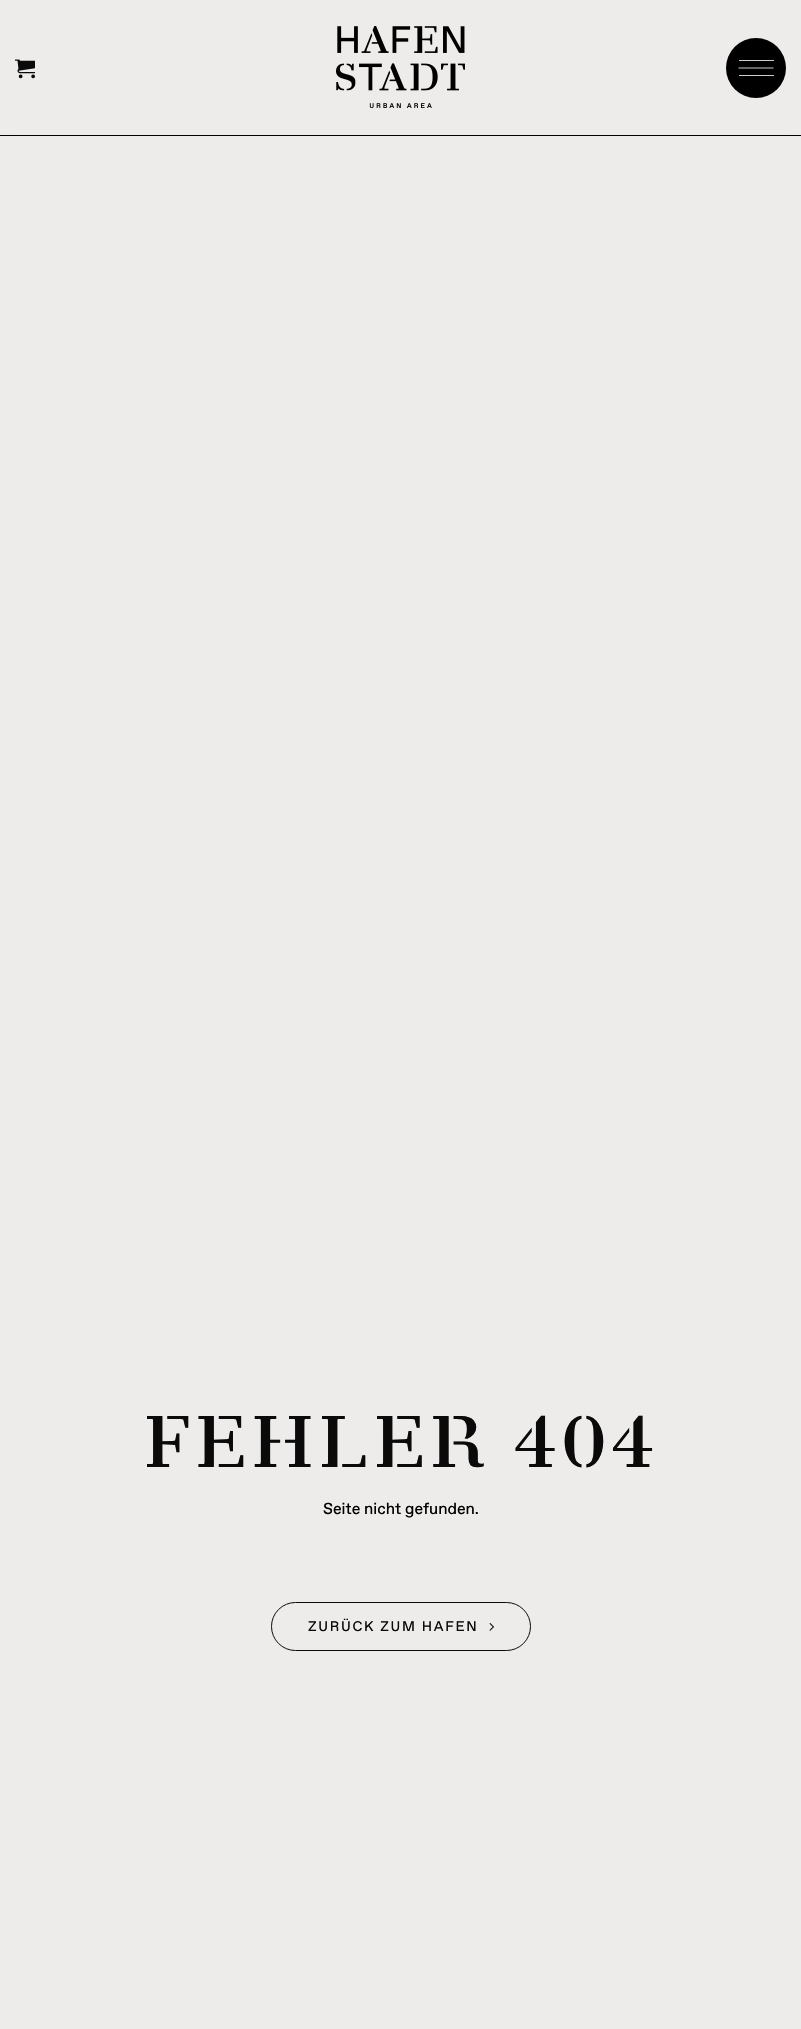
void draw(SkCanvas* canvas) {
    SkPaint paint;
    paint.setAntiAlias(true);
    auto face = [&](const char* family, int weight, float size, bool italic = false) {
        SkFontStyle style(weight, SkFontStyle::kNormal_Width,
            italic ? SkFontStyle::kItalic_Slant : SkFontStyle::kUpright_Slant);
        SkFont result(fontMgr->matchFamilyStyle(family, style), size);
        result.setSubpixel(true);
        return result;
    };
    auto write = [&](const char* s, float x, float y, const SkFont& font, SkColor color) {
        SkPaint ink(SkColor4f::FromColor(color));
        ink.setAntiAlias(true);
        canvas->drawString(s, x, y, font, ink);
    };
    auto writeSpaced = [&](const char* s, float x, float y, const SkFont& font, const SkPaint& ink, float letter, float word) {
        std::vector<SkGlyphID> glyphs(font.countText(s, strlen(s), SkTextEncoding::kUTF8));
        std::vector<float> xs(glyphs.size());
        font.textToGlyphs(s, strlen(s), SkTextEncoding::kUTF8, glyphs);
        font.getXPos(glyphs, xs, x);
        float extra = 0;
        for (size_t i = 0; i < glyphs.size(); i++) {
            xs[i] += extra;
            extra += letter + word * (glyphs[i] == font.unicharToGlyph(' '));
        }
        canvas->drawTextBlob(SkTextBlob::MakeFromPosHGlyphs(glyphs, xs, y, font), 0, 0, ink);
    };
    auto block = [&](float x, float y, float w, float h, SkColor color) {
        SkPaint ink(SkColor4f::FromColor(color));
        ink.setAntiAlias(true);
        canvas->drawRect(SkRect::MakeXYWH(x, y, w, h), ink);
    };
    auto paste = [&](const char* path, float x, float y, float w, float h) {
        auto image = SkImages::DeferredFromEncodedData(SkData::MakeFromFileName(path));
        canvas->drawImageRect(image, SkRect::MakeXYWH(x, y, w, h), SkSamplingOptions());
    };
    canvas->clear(SkColorSetRGB(238, 236, 234));
    block(0, 135, 801, 1, SK_ColorBLACK);
    paste("pic1.png", 15, 59, 20, 20);
    paste("pic2.png", 336, 26, 129, 82);
    paint.setColor(SK_ColorBLACK);
    canvas->drawCircle(756, 68, 30, paint);
    paint.setStyle(SkPaint::kStroke_Style);
    paint.setStrokeWidth(0.8f);
    paint.setColor(SK_ColorWHITE);
    canvas->drawPath(SkPathBuilder().moveTo(738.5f, 68).lineTo(773.5f, 68).detach(), paint);
    block(739, 75, 35, 1, SkColorSetRGB(204, 204, 204));
    block(739, 60, 35, 1, SkColorSetRGB(204, 204, 204));
    block(15, 135, 771, 1, SkColorSetRGB(3, 3, 3));
    auto kFont1 = face("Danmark", 700, 72.75f);
    paint.setStyle(SkPaint::kFill_Style);
    paint.setColor(SkColorSetRGB(10, 10, 10));
    writeSpaced("FEHLER 404", 143, 1467, kFont1, paint, 3.6f, 0);
    auto kFont2 = face("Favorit", 400, 16);
    write("Seite nicht gefunden.", 323, 1514, kFont2, SK_ColorBLACK);
    paint.setStyle(SkPaint::kStroke_Style);
    paint.setStrokeWidth(1);
    canvas->drawRoundRect(SkRect::MakeXYWH(271.5f, 1602.5f, 259, 48), 24, 24, paint);
    auto kFont3 = face("Favorit", 400, 14);
    paint.setStyle(SkPaint::kFill_Style);
    writeSpaced("ZURÜCK ZUM HAFEN", 308, 1631, kFont3, paint, 1.7f, 0);
    paste("pic3.png", 489, 1623, 5, 8);
}
